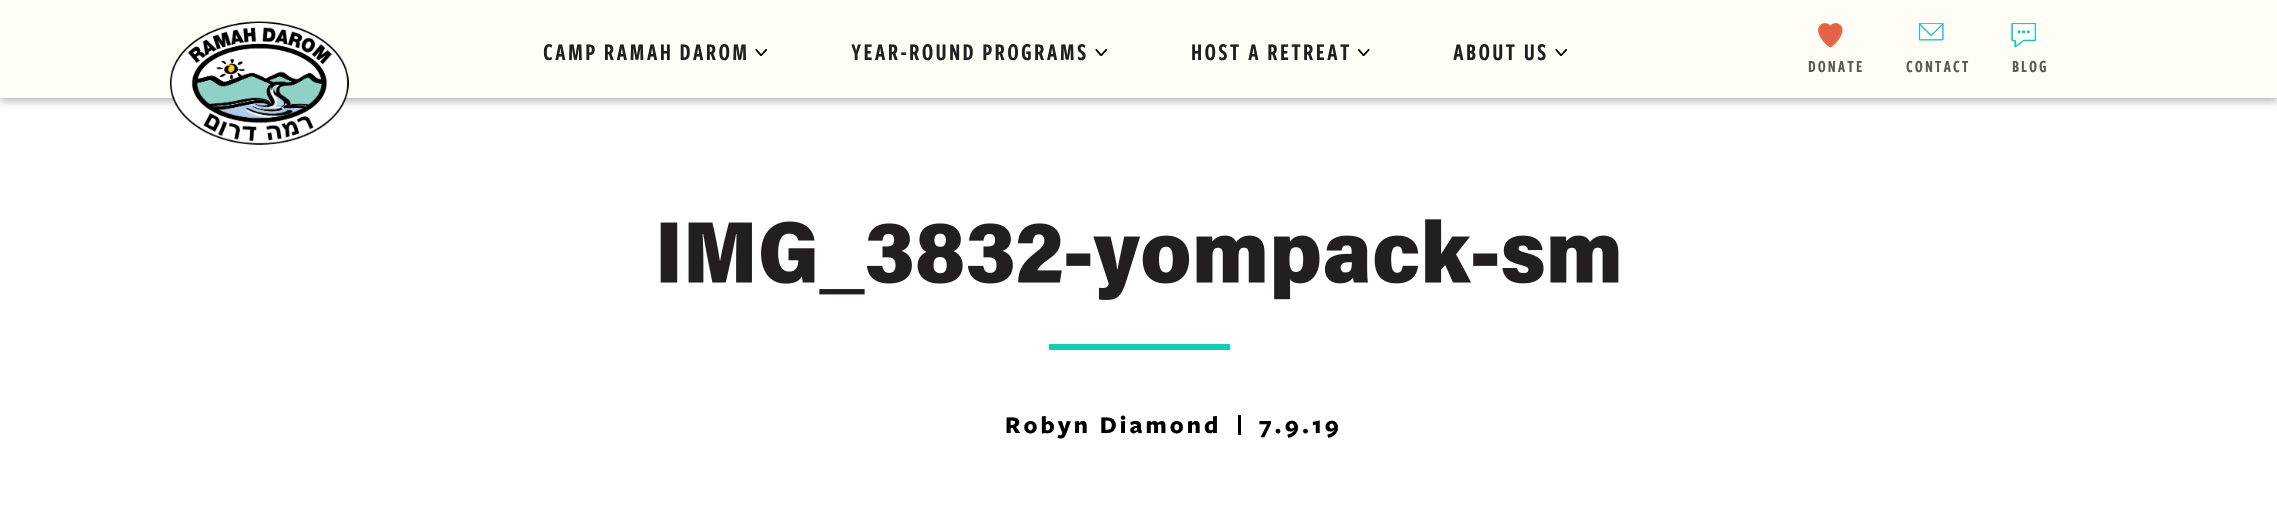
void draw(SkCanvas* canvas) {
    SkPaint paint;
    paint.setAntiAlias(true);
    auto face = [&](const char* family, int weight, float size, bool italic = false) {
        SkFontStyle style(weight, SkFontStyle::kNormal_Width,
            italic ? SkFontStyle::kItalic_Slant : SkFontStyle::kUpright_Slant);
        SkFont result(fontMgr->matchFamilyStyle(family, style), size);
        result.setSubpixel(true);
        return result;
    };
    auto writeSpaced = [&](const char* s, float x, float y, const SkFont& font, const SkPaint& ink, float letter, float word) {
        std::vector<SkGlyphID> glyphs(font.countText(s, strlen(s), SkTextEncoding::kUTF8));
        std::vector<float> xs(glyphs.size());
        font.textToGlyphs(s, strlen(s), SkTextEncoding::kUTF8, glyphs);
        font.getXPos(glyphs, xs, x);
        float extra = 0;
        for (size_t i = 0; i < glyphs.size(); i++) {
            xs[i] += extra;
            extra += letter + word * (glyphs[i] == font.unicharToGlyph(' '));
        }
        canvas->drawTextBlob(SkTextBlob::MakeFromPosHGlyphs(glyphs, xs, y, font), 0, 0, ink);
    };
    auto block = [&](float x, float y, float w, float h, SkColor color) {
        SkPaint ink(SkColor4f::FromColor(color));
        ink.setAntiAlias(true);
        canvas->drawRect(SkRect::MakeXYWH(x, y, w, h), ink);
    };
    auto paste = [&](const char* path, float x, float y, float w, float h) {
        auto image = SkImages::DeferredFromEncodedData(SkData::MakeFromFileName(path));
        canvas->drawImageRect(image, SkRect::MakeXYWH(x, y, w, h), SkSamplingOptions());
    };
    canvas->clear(SK_ColorWHITE);
    paint.setColor(SkColorSetARGB(105, 35, 31, 32));
    paint.setMaskFilter(SkMaskFilter::MakeBlur(kNormal_SkBlurStyle, 4.5f));
    canvas->drawRect(SkRect::MakeXYWH(0, 3, 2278, 97), paint);
    paint.setMaskFilter(nullptr);
    block(0, 0, 2277, 98, SkColorSetRGB(255, 253, 246));
    paste("pic1.png", 170, 21, 179, 124);
    auto kFont1 = face("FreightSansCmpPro", 600, 25);
    paint.setColor(SkColorSetRGB(35, 31, 32));
    writeSpaced("CAMP RAMAH DAROM", 543, 60, kFont1, paint, 2.25f, 0);
    paste("pic2.png", 755, 49, 13, 7);
    writeSpaced("YEAR-ROUND PROGRAMS", 851, 60, kFont1, paint, 2.25f, 0);
    paste("pic2.png", 1095, 49, 13, 7);
    writeSpaced("HOST A RETREAT", 1191, 60, kFont1, paint, 2.25f, 0);
    paste("pic3.png", 1358, 49, 12, 7);
    writeSpaced("ABOUT US", 1453, 60, kFont1, paint, 2.25f, 0);
    paste("pic2.png", 1555, 49, 13, 7);
    paste("pic4.png", 1818, 23, 25, 25);
    auto kFont2 = face("FreightSansCmpPro", 600, 17.5f);
    paint.setColor(SkColorSetRGB(90, 87, 85));
    writeSpaced("DONATE", 1808, 72, kFont2, paint, 2, 0);
    paste("pic5.png", 1919, 23, 25, 18);
    writeSpaced("CONTACT", 1906, 72, kFont2, paint, 2, 0);
    paste("pic6.png", 2011, 23, 25, 25);
    writeSpaced("BLOG", 2012, 72, kFont2, paint, 2, 0);
    paste("pic7.png", 660, 219, 959, 81);
    block(1049, 344, 181, 6, SkColorSetRGB(20, 204, 180));
    auto kFont3 = face("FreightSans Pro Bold", 700, 25);
    paint.setColor(SK_ColorBLACK);
    writeSpaced("Robyn Diamond", 1005, 433, kFont3, paint, 3.1f, 0);
    block(1238, 415, 3, 20, SK_ColorBLACK);
    writeSpaced("7.9.19", 1259, 433, kFont3, paint, 3.1f, 0);
}
